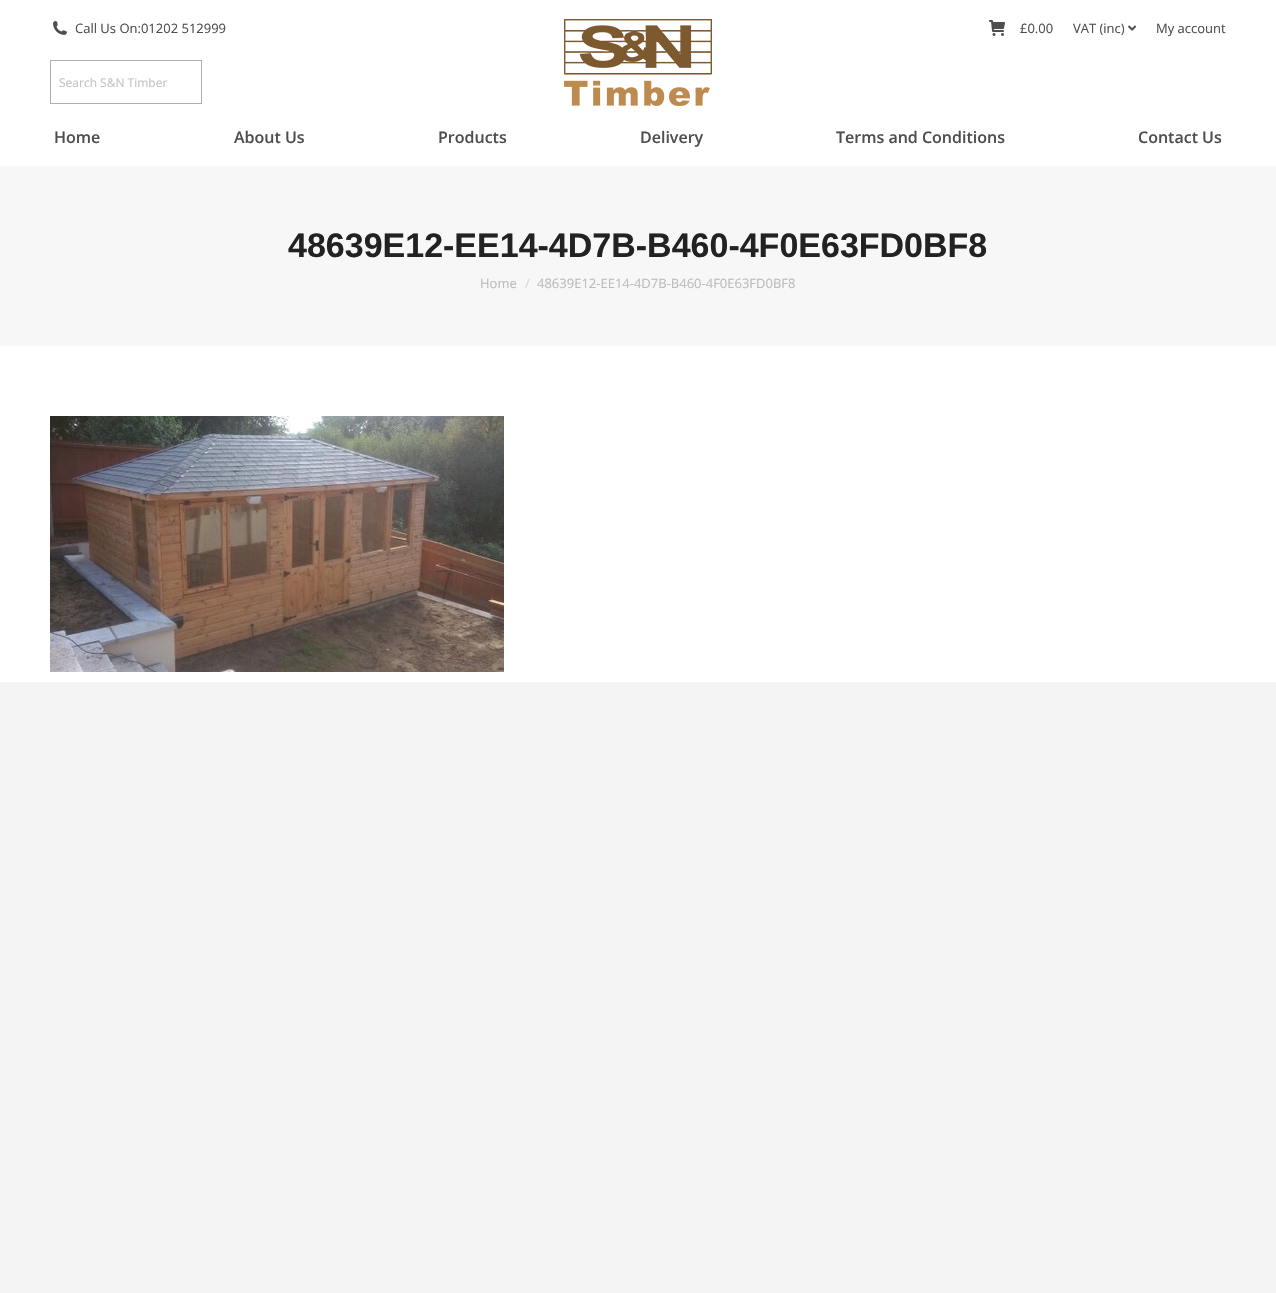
void draw(SkCanvas* canvas) {
    SkPaint paint;
    paint.setAntiAlias(true);
    auto face = [&](const char* family, int weight, float size, bool italic = false) {
        SkFontStyle style(weight, SkFontStyle::kNormal_Width,
            italic ? SkFontStyle::kItalic_Slant : SkFontStyle::kUpright_Slant);
        SkFont result(fontMgr->matchFamilyStyle(family, style), size);
        result.setSubpixel(true);
        return result;
    };
    auto write = [&](const char* s, float x, float y, const SkFont& font, SkColor color) {
        SkPaint ink(SkColor4f::FromColor(color));
        ink.setAntiAlias(true);
        canvas->drawString(s, x, y, font, ink);
    };
    auto block = [&](float x, float y, float w, float h, SkColor color) {
        SkPaint ink(SkColor4f::FromColor(color));
        ink.setAntiAlias(true);
        canvas->drawRect(SkRect::MakeXYWH(x, y, w, h), ink);
    };
    auto paste = [&](const char* path, float x, float y, float w, float h) {
        auto image = SkImages::DeferredFromEncodedData(SkData::MakeFromFileName(path));
        canvas->drawImageRect(image, SkRect::MakeXYWH(x, y, w, h), SkSamplingOptions());
    };
    canvas->clear(SkColorSetRGB(244, 244, 244));
    block(0, 0, 1276, 682, SK_ColorWHITE);
    paste("pic1.png", 53, 21, 14, 14);
    auto kFont1 = face("Open Sans", 400, 13);
    write("Call Us On:01202 512999", 75, 33, kFont1, SkColorSetRGB(79, 77, 77));
    paste("pic2.png", 989, 20, 16, 16);
    write("£0.00", 1020, 33, kFont1, SkColorSetRGB(79, 77, 77));
    write("VAT (inc)", 1073, 33, kFont1, SkColorSetRGB(79, 77, 77));
    paste("pic3.png", 1128, 25, 9, 6);
    write("My account", 1156, 33, kFont1, SkColorSetRGB(79, 77, 77));
    paint.setStyle(SkPaint::kStroke_Style);
    paint.setStrokeWidth(1);
    paint.setColor(SkColorSetRGB(174, 174, 174));
    canvas->drawRect(SkRect::MakeXYWH(50.5f, 60.5f, 151, 43), paint);
    auto kFont2 = face("Open Sans", 400, 12);
    write("Search S&N Timber", 59, 87, kFont2, SkColorSetRGB(194, 195, 198));
    paste("pic4.png", 564, 19, 148, 87);
    auto kFont3 = face("Open Sans", 600, 16);
    write("Home", 54, 143, kFont3, SkColorSetRGB(79, 77, 77));
    write("About Us", 234, 143, kFont3, SkColorSetRGB(79, 77, 77));
    write("Products", 438, 143, kFont3, SkColorSetRGB(79, 77, 77));
    write("Delivery", 640, 143, kFont3, SkColorSetRGB(79, 77, 77));
    write("Terms and Conditions", 836, 143, kFont3, SkColorSetRGB(79, 77, 77));
    write("Contact Us", 1138, 143, kFont3, SkColorSetRGB(79, 77, 77));
    block(0, 166, 1276, 180, SkColorSetRGB(247, 247, 247));
    auto kFont4 = face("Liberation Sans", 700, 34);
    write("48639E12-EE14-4D7B-B460-4F0E63FD0BF8", 288, 257, kFont4, SkColorSetRGB(34, 34, 34));
    write("Home", 480, 288, kFont1, SkColorSetRGB(187, 187, 187));
    write("/", 525, 288, kFont1, SkColorSetRGB(217, 217, 217));
    write("48639E12-EE14-4D7B-B460-4F0E63FD0BF8", 537, 288, kFont1, SkColorSetRGB(187, 187, 187));
    paste("pic5.png", 50, 416, 454, 256);
}
